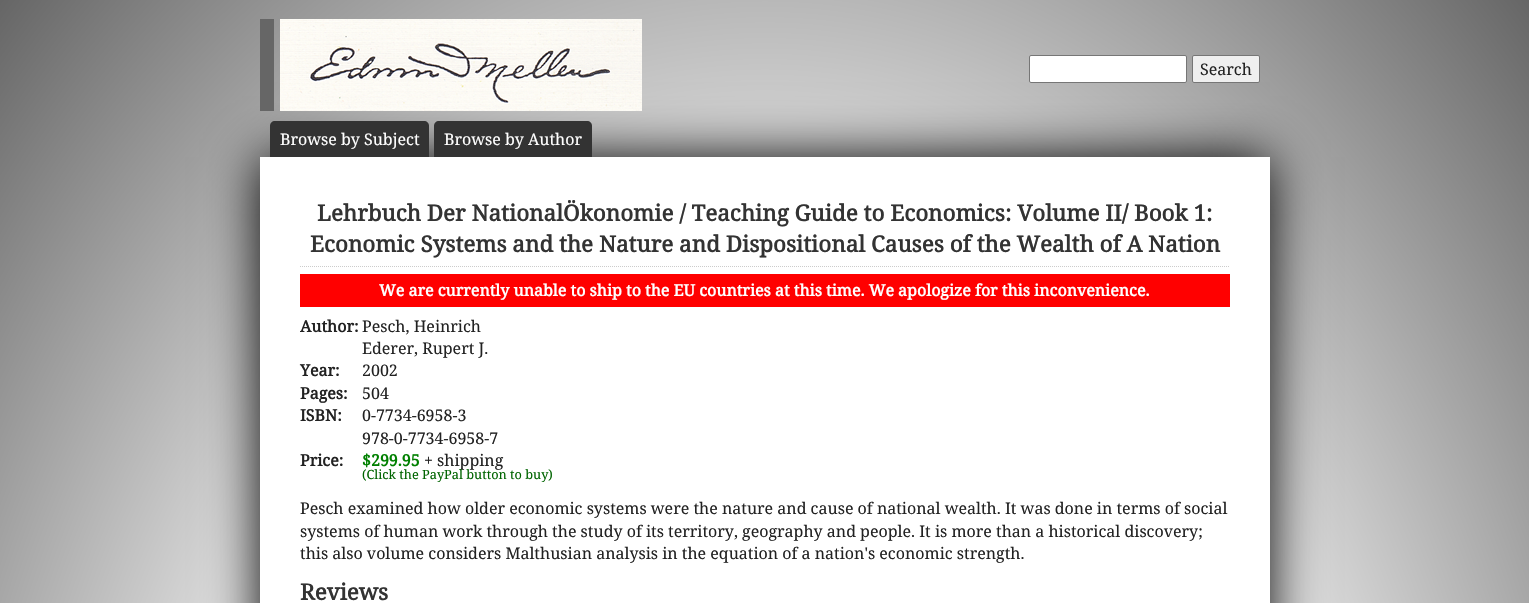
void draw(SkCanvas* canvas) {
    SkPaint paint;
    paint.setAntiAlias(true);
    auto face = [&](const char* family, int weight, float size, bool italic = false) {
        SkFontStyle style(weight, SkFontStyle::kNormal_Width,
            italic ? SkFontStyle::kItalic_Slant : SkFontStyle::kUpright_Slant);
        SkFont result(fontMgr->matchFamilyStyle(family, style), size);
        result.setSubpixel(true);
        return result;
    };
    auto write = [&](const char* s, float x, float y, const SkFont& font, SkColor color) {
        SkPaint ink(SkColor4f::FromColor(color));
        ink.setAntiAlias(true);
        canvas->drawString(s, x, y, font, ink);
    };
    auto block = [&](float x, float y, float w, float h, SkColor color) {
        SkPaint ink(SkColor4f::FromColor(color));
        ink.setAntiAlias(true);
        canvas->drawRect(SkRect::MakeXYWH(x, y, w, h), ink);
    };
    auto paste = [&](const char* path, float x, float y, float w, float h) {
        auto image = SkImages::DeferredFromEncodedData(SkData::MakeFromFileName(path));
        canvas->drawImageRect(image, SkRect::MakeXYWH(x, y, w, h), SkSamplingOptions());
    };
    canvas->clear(SK_ColorWHITE);
    {
        const SkColor colors[] = {SkColorSetRGB(228, 245, 252), SkColorSetRGB(237, 237, 237), SkColorSetRGB(102, 102, 102)};
        const float stops[] = {0, 0.52f, 1};
        SkMatrix m = SkMatrix::Translate(765, 1041).preScale(1081, 1471);
        paint.setShader(SkGradientShader::MakeRadial({0, 0}, 1, colors, stops, 3, SkTileMode::kClamp, 0, &m));
        paint.setAlpha(255);
    }
    canvas->drawRect(SkRect::MakeXYWH(0, 0, 1529, 603), paint);
    paint.setShader(nullptr);
    paint.setColor(SK_ColorBLACK);
    paint.setMaskFilter(SkMaskFilter::MakeBlur(kNormal_SkBlurStyle, 25));
    canvas->drawRect(SkRect::MakeXYWH(260, 157, 1010, 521), paint);
    paint.setMaskFilter(nullptr);
    paste("pic1.png", 260, 19, 382, 92);
    paint.setColor(SK_ColorWHITE);
    canvas->drawRoundRect(SkRect::MakeXYWH(1029.5f, 55.5f, 157, 27), 1.5f, 1.5f, paint);
    paint.setStyle(SkPaint::kStroke_Style);
    paint.setStrokeWidth(1);
    paint.setColor(SkColorSetRGB(118, 118, 118));
    canvas->drawRoundRect(SkRect::MakeXYWH(1029.5f, 55.5f, 157, 27), 1.5f, 1.5f, paint);
    paint.setStyle(SkPaint::kFill_Style);
    paint.setColor(SkColorSetRGB(239, 239, 239));
    canvas->drawRoundRect(SkRect::MakeXYWH(1192.5f, 55.5f, 67, 27), 1.5f, 1.5f, paint);
    paint.setStyle(SkPaint::kStroke_Style);
    paint.setColor(SkColorSetRGB(118, 118, 118));
    canvas->drawRoundRect(SkRect::MakeXYWH(1192.5f, 55.5f, 67, 27), 1.5f, 1.5f, paint);
    auto kFont1 = face("Noto Serif", 400, 16);
    write("Search", 1200, 75, kFont1, SkColorSetRGB(34, 34, 34));
    paint.setStyle(SkPaint::kFill_Style);
    paint.setColor(SkColorSetRGB(51, 51, 51));
    canvas->drawPath(SkPathBuilder().moveTo(275, 121).lineTo(424, 121).cubicTo(427, 121, 429, 123, 429, 126).lineTo(429, 157).lineTo(270, 157).lineTo(270, 126).cubicTo(270, 123, 272, 121, 275, 121).close().detach(), paint);
    write("Browse by Subject", 280, 145, kFont1, SK_ColorWHITE);
    canvas->drawPath(SkPathBuilder().moveTo(439, 121).lineTo(587, 121).cubicTo(590, 121, 592, 123, 592, 126).lineTo(592, 157).lineTo(434, 157).lineTo(434, 126).cubicTo(434, 123, 436, 121, 439, 121).close().detach(), paint);
    write("Browse by Author", 444, 145, kFont1, SK_ColorWHITE);
    block(260, 157, 1010, 446, SK_ColorWHITE);
    paint.setStyle(SkPaint::kStroke_Style);
    paint.setColor(SkColorSetRGB(204, 204, 204));
    paint.setPathEffect(SkDashPathEffect::Make({{1, 1}}, 0));
    canvas->drawPath(SkPathBuilder().moveTo(300, 266.5f).lineTo(1230, 266.5f).detach(), paint);
    paint.setPathEffect(nullptr);
    auto kFont2 = face("Noto Serif", 700, 22.4f);
    write("Lehrbuch Der NationalÖkonomie / Teaching Guide to Economics: Volume II/ Book 1:", 317, 221, kFont2, SkColorSetRGB(51, 51, 51));
    write("Economic Systems and the Nature and Dispositional Causes of the Wealth of A Nation", 310, 252, kFont2, SkColorSetRGB(51, 51, 51));
    block(300, 274, 930, 33, SkColorSetRGB(255, 0, 0));
    auto kFont3 = face("Noto Serif", 700, 16);
    write("We are currently unable to ship to the EU countries at this time. We apologize for this inconvenience.", 379, 296, kFont3, SK_ColorWHITE);
    write("Author:", 300, 332, kFont3, SkColorSetRGB(34, 34, 34));
    write("Pesch, Heinrich", 362, 332, kFont1, SkColorSetRGB(34, 34, 34));
    write("Ederer, Rupert J.", 362, 354, kFont1, SkColorSetRGB(34, 34, 34));
    write("Year:", 300, 376, kFont3, SkColorSetRGB(34, 34, 34));
    write("2002", 362, 376, kFont1, SkColorSetRGB(34, 34, 34));
    write("Pages:", 300, 399, kFont3, SkColorSetRGB(34, 34, 34));
    write("504", 362, 399, kFont1, SkColorSetRGB(34, 34, 34));
    write("ISBN:", 300, 421, kFont3, SkColorSetRGB(34, 34, 34));
    write("0-7734-6958-3", 362, 421, kFont1, SkColorSetRGB(34, 34, 34));
    write("978-0-7734-6958-7", 362, 444, kFont1, SkColorSetRGB(34, 34, 34));
    write("Price:", 300, 466, kFont3, SkColorSetRGB(34, 34, 34));
    write("$299.95", 362, 466, kFont3, SkColorSetRGB(0, 128, 0));
    write("+ shipping", 424, 466, kFont1, SkColorSetRGB(34, 34, 34));
    auto kFont4 = face("Noto Serif", 400, 12.75f);
    write("(Click the PayPal button to buy)", 362, 479, kFont4, SkColorSetRGB(0, 100, 0));
    write("Pesch examined how older economic systems were the nature and cause of national wealth. It was done in terms of social", 300, 514, kFont1, SkColorSetRGB(34, 34, 34));
    write("systems of human work through the study of its territory, geography and people. It is more than a historical discovery;", 300, 537, kFont1, SkColorSetRGB(34, 34, 34));
    write("this also volume considers Malthusian analysis in the equation of a nation's economic strength.", 300, 559, kFont1, SkColorSetRGB(34, 34, 34));
    write("Reviews", 300, 600, kFont2, SkColorSetRGB(51, 51, 51));
}
